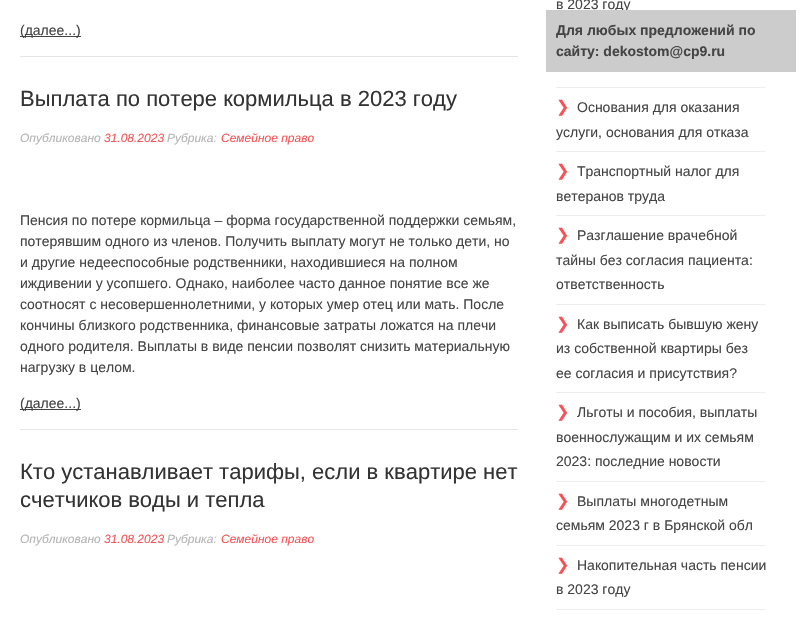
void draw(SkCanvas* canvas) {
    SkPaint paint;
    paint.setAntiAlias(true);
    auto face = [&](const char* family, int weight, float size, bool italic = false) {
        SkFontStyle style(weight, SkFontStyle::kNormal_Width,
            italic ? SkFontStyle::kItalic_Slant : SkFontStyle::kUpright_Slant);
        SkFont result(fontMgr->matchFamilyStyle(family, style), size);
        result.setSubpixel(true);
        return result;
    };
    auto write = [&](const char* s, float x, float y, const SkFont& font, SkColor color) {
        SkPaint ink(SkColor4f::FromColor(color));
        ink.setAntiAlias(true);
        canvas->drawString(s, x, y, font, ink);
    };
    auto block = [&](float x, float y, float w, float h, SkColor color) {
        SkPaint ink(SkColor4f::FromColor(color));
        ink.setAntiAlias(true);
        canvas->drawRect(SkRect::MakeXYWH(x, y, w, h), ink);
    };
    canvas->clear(SK_ColorWHITE);
    block(20, 56, 498, 1, SkColorSetRGB(229, 229, 229));
    block(20, 36, 61, 1, SkColorSetRGB(68, 68, 68));
    auto kFont1 = face("Liberation Sans", 400, 14);
    write("(далее...)", 20, 35, kFont1, SkColorSetRGB(68, 68, 68));
    block(20, 429, 498, 1, SkColorSetRGB(229, 229, 229));
    auto kFont2 = face("Liberation Sans", 400, 22);
    write("Выплата по потере кормильца в 2023 году", 20, 106, kFont2, SkColorSetRGB(51, 51, 51));
    auto kFont3 = face("Liberation Sans", 400, 12, true);
    write("Опубликовано", 20, 142, kFont3, SkColorSetRGB(180, 180, 180));
    write("31.08.2023", 104, 142, kFont3, SkColorSetRGB(247, 83, 87));
    write("Рубрика:", 167, 142, kFont3, SkColorSetRGB(180, 180, 180));
    write("Семейное право", 221, 142, kFont3, SkColorSetRGB(247, 83, 87));
    write("Пенсия по потере кормильца – форма государственной поддержки семьям,", 20, 225, kFont1, SkColorSetRGB(68, 68, 68));
    write("потерявшим одного из членов. Получить выплату могут не только дети, но", 20, 246, kFont1, SkColorSetRGB(68, 68, 68));
    write("и другие недееспособные родственники, находившиеся на полном", 20, 267, kFont1, SkColorSetRGB(68, 68, 68));
    write("иждивении у усопшего. Однако, наиболее часто данное понятие все же", 20, 288, kFont1, SkColorSetRGB(68, 68, 68));
    write("соотносят с несовершеннолетними, у которых умер отец или мать. После", 20, 309, kFont1, SkColorSetRGB(68, 68, 68));
    write("кончины близкого родственника, финансовые затраты ложатся на плечи", 20, 330, kFont1, SkColorSetRGB(68, 68, 68));
    write("одного родителя. Выплаты в виде пенсии позволят снизить материальную", 20, 351, kFont1, SkColorSetRGB(68, 68, 68));
    write("нагрузку в целом.", 20, 372, kFont1, SkColorSetRGB(68, 68, 68));
    block(20, 409, 61, 1, SkColorSetRGB(68, 68, 68));
    write("(далее...)", 20, 408, kFont1, SkColorSetRGB(68, 68, 68));
    write("Кто устанавливает тарифы, если в квартире нет", 20, 479, kFont2, SkColorSetRGB(51, 51, 51));
    write("счетчиков воды и тепла", 20, 507, kFont2, SkColorSetRGB(51, 51, 51));
    write("Опубликовано", 20, 543, kFont3, SkColorSetRGB(180, 180, 180));
    write("31.08.2023", 104, 543, kFont3, SkColorSetRGB(247, 83, 87));
    write("Рубрика:", 167, 543, kFont3, SkColorSetRGB(180, 180, 180));
    write("Семейное право", 221, 543, kFont3, SkColorSetRGB(247, 83, 87));
    write("в 2023 году", 556, 9, kFont1, SkColorSetRGB(68, 68, 68));
    block(556, 87, 210, 1, SkColorSetRGB(238, 238, 238));
    block(556, 151, 210, 1, SkColorSetRGB(238, 238, 238));
    auto kFont4 = face("DejaVu Sans", 400, 16);
    write("❯", 556, 112, kFont4, SkColorSetRGB(247, 83, 87));
    write("Основания для оказания", 577, 112, kFont1, SkColorSetRGB(68, 68, 68));
    write("услуги, основания для отказа", 556, 137, kFont1, SkColorSetRGB(68, 68, 68));
    block(556, 215, 210, 1, SkColorSetRGB(238, 238, 238));
    write("❯", 556, 176, kFont4, SkColorSetRGB(247, 83, 87));
    write("Транспортный налог для", 577, 176, kFont1, SkColorSetRGB(68, 68, 68));
    write("ветеранов труда", 556, 201, kFont1, SkColorSetRGB(68, 68, 68));
    block(556, 304, 210, 1, SkColorSetRGB(238, 238, 238));
    write("❯", 556, 240, kFont4, SkColorSetRGB(247, 83, 87));
    write("Разглашение врачебной", 577, 240, kFont1, SkColorSetRGB(68, 68, 68));
    write("тайны без согласия пациента:", 556, 265, kFont1, SkColorSetRGB(68, 68, 68));
    write("ответственность", 556, 289, kFont1, SkColorSetRGB(68, 68, 68));
    block(556, 392, 210, 1, SkColorSetRGB(238, 238, 238));
    write("❯", 556, 329, kFont4, SkColorSetRGB(247, 83, 87));
    write("Как выписать бывшую жену", 577, 329, kFont1, SkColorSetRGB(68, 68, 68));
    write("из собственной квартиры без", 556, 353, kFont1, SkColorSetRGB(68, 68, 68));
    write("ее согласия и присутствия?", 556, 378, kFont1, SkColorSetRGB(68, 68, 68));
    block(556, 481, 210, 1, SkColorSetRGB(238, 238, 238));
    write("❯", 556, 417, kFont4, SkColorSetRGB(247, 83, 87));
    write("Льготы и пособия, выплаты", 577, 417, kFont1, SkColorSetRGB(68, 68, 68));
    write("военнослужащим и их семьям", 556, 442, kFont1, SkColorSetRGB(68, 68, 68));
    write("2023: последние новости", 556, 466, kFont1, SkColorSetRGB(68, 68, 68));
    block(556, 545, 210, 1, SkColorSetRGB(238, 238, 238));
    write("❯", 556, 506, kFont4, SkColorSetRGB(247, 83, 87));
    write("Выплаты многодетным", 577, 506, kFont1, SkColorSetRGB(68, 68, 68));
    write("семьям 2023 г в Брянской обл", 556, 530, kFont1, SkColorSetRGB(68, 68, 68));
    block(556, 609, 210, 1, SkColorSetRGB(238, 238, 238));
    write("❯", 556, 570, kFont4, SkColorSetRGB(247, 83, 87));
    write("Накопительная часть пенсии", 577, 570, kFont1, SkColorSetRGB(68, 68, 68));
    write("в 2023 году", 556, 594, kFont1, SkColorSetRGB(68, 68, 68));
    block(546, 10, 250, 62, SkColorSetRGB(204, 204, 204));
    auto kFont5 = face("Liberation Sans", 700, 14);
    write("Для любых предложений по", 556, 35, kFont5, SkColorSetRGB(68, 68, 68));
    write("сайту: dekostom@cp9.ru", 556, 56, kFont5, SkColorSetRGB(68, 68, 68));
}
